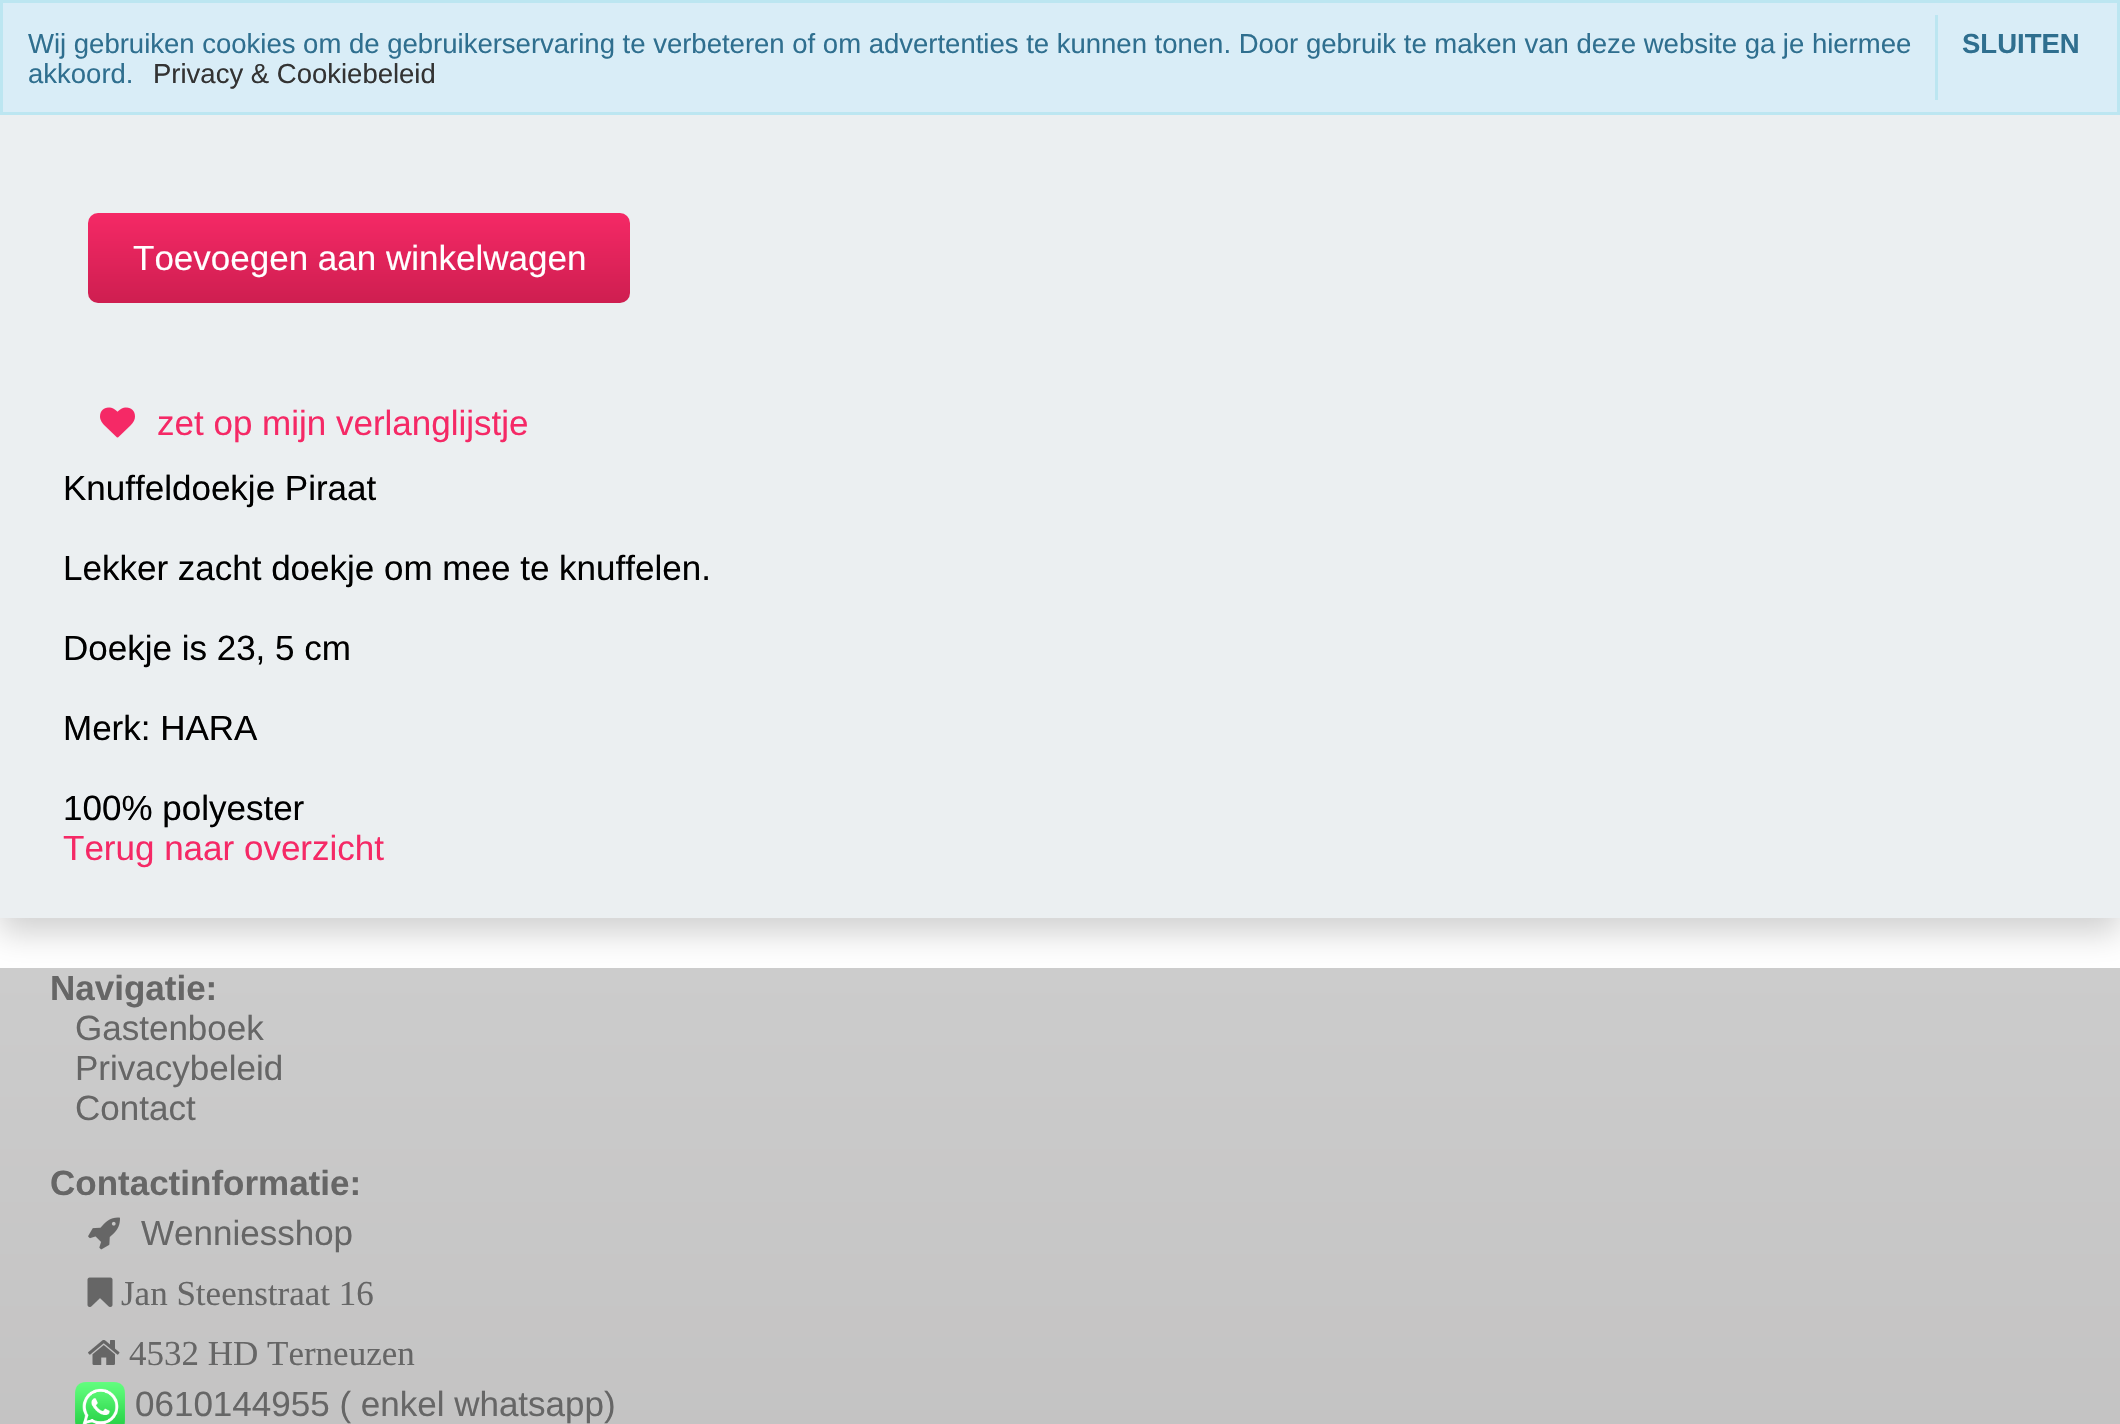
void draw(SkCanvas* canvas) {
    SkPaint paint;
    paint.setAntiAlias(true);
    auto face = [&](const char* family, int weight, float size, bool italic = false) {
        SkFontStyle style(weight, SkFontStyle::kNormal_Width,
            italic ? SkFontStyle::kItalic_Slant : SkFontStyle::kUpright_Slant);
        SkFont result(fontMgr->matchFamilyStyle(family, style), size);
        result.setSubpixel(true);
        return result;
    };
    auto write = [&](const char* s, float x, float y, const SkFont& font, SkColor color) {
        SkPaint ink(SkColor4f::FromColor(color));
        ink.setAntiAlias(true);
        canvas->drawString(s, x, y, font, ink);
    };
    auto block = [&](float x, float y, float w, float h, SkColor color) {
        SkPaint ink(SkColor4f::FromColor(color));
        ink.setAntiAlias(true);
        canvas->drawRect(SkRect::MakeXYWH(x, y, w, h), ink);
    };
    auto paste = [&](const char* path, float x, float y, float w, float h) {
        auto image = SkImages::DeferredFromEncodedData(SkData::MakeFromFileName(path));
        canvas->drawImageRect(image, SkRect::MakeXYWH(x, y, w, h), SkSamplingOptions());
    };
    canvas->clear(SK_ColorWHITE);
    paint.setColor(SkColorSetARGB(46, 0, 0, 0));
    paint.setMaskFilter(SkMaskFilter::MakeBlur(kNormal_SkBlurStyle, 15));
    canvas->drawRect(SkRect::MakeXYWH(0, -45, 2120, 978), paint);
    paint.setMaskFilter(nullptr);
    paint.setColor(SkColorSetRGB(217, 237, 247));
    canvas->drawRect(SkRect::MakeXYWH(1.5f, 1.5f, 2117, 112), paint);
    paint.setStyle(SkPaint::kStroke_Style);
    paint.setStrokeWidth(3);
    paint.setColor(SkColorSetRGB(188, 230, 241));
    canvas->drawRect(SkRect::MakeXYWH(1.5f, 1.5f, 2117, 112), paint);
    auto kFont1 = face("Liberation Sans", 400, 27.5f);
    write("Wij gebruiken cookies om de gebruikerservaring te verbeteren of om advertenties te kunnen tonen. Door gebruik te maken van deze website ga je hiermee", 28, 53, kFont1, SkColorSetRGB(47, 111, 143));
    write("akkoord.", 28, 83, kFont1, SkColorSetRGB(47, 111, 143));
    write("Privacy & Cookiebeleid", 153, 83, kFont1, SkColorSetRGB(51, 51, 51));
    block(1935, 15, 3, 85, SkColorSetRGB(188, 230, 241));
    auto kFont2 = face("Liberation Sans", 700, 27.5f);
    write("SLUITEN", 1962, 53, kFont2, SkColorSetRGB(47, 111, 143));
    block(0, 115, 2120, 803, SkColorSetRGB(235, 239, 241));
    paint.setStyle(SkPaint::kFill_Style);
    {
        const SkColor colors[] = {SkColorSetRGB(245, 41, 102), SkColorSetRGB(206, 30, 80)};
        const float stops[] = {0, 1};
        const SkPoint ends[] = {{359, 212}, {359, 303}};
        paint.setShader(SkGradientShader::MakeLinear(ends, colors, stops, 2, SkTileMode::kClamp));
        paint.setAlpha(255);
    }
    canvas->drawRoundRect(SkRect::MakeXYWH(88, 213, 542, 90), 10, 10, paint);
    auto kFont3 = face("Liberation Sans", 400, 35);
    write("Toevoegen aan winkelwagen", 133, 270, kFont3, SK_ColorWHITE);
    paste("pic1.png", 100, 407, 35, 31);
    write("zet op mijn verlanglijstje", 157, 435, kFont3, SkColorSetRGB(245, 41, 102));
    write("Knuffeldoekje Piraat", 63, 500, kFont3, SK_ColorBLACK);
    write("Lekker zacht doekje om mee te knuffelen.", 63, 580, kFont3, SK_ColorBLACK);
    write("Doekje is 23, 5 cm", 63, 660, kFont3, SK_ColorBLACK);
    write("Merk: HARA", 63, 740, kFont3, SK_ColorBLACK);
    write("100% polyester", 63, 820, kFont3, SK_ColorBLACK);
    write("Terug naar overzicht", 63, 860, kFont3, SkColorSetRGB(245, 41, 102));
    {
        const SkColor colors[] = {SkColorSetRGB(204, 204, 204), SkColorSetRGB(182, 180, 180)};
        const float stops[] = {0, 1};
        const SkPoint ends[] = {{1060, 967}, {1060, 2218}};
        paint.setShader(SkGradientShader::MakeLinear(ends, colors, stops, 2, SkTileMode::kClamp));
        paint.setAlpha(255);
    }
    canvas->drawRect(SkRect::MakeXYWH(0, 968, 2120, 456), paint);
    auto kFont4 = face("Liberation Sans", 700, 35);
    write("Navigatie:", 50, 1000, kFont4, SkColorSetRGB(102, 102, 102));
    write("Gastenboek", 75, 1040, kFont3, SkColorSetRGB(102, 102, 102));
    write("Privacybeleid", 75, 1080, kFont3, SkColorSetRGB(102, 102, 102));
    write("Contact", 75, 1120, kFont3, SkColorSetRGB(102, 102, 102));
    write("Contactinformatie:", 50, 1195, kFont4, SkColorSetRGB(102, 102, 102));
    paste("pic2.png", 88, 1217, 32, 33);
    write("Wenniesshop", 141, 1245, kFont3, SkColorSetRGB(102, 102, 102));
    paste("pic3.png", 87, 1277, 26, 30);
    auto kFont5 = face("Liberation Serif", 400, 35);
    write("Jan Steenstraat 16", 121, 1305, kFont5, SkColorSetRGB(102, 102, 102));
    paste("pic4.png", 88, 1340, 32, 25);
    write("4532 HD Terneuzen", 129, 1365, kFont5, SkColorSetRGB(102, 102, 102));
    paste("pic5.png", 75, 1382, 50, 42);
    write("0610144955 ( enkel whatsapp)", 135, 1416, kFont3, SkColorSetRGB(102, 102, 102));
}
